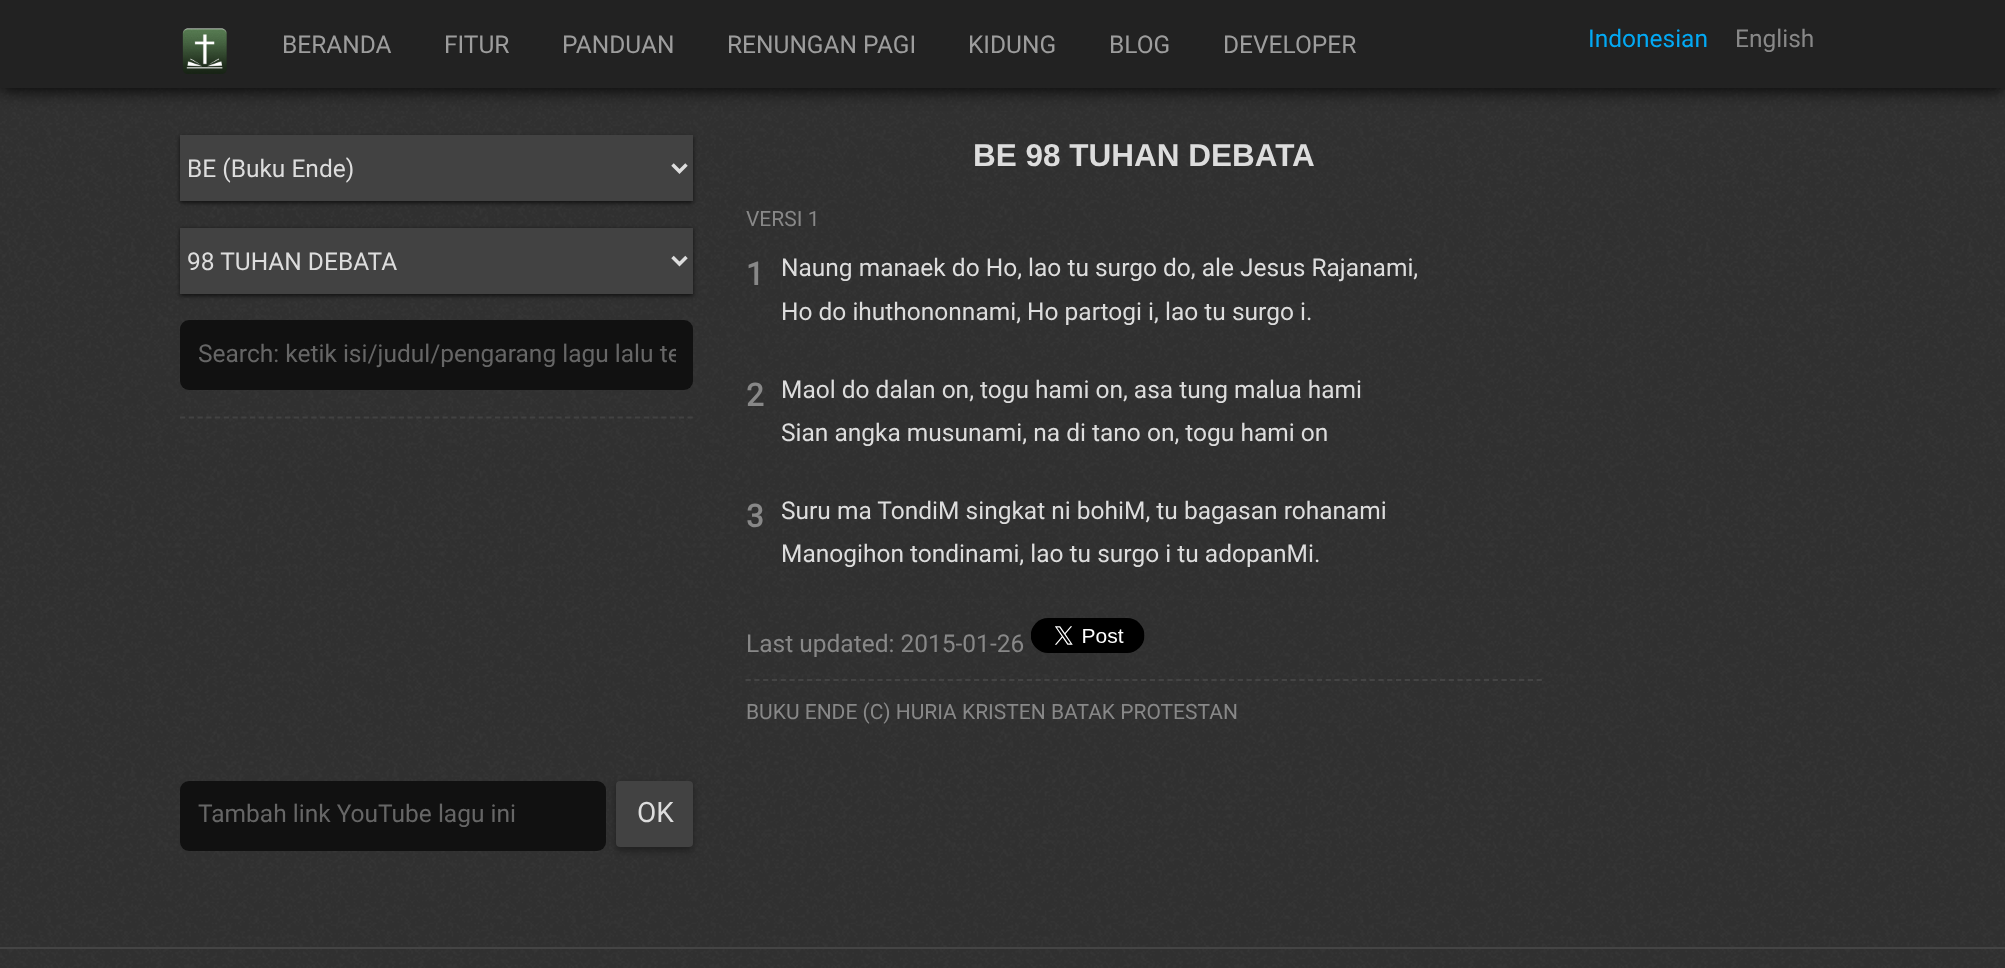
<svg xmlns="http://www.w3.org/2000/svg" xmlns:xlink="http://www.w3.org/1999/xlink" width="2005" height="968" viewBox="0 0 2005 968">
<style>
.cls-1{font:24.5px Roboto;fill:#9d9d9d}
.cls-2{font:24.5px Roboto;fill:#03a9f4}
.cls-3{font:24.5px Roboto;fill:#888888}
.cls-4{font:24.5px Roboto;fill:#dddddd}
.cls-5{font:24.5px Roboto;fill:#666666}
.cls-6{font:bold 31.5px Liberation Sans;fill:#dddddd}
.cls-7{font:21px Roboto;fill:#888888}
.cls-8{font:bold 31.5px Roboto;fill:#888888}
.cls-9{font:28px Roboto;fill:#dddddd}
</style>
<defs>
<clipPath id="clip1"><rect x="198" y="340" width="478" height="28"/></clipPath>
</defs>
<rect width="100%" height="100%" fill="#303030"/>
<image xlink:href="image0.png" x="0" y="88" width="2005" height="880"/>
<rect fill="#000000" filter="blur(9px)" x="0" y="2" width="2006" height="87"/>
<rect fill="#222222" x="0" y="0" width="2005" height="88"/>
<image xlink:href="image1.png" x="182" y="28" width="45" height="46"/>
<rect fill="#111111" filter="blur(2px)" x="180" y="137" width="513" height="66"/>
<rect fill="#424242" x="180" y="135" width="513" height="66"/>
<path fill="none" stroke="#dddddd" stroke-width="3.5" d="M672.5 164.5L679.5 171.5L686.5 164.5"/>
<rect fill="#111111" filter="blur(2px)" x="180" y="229" width="513" height="67"/>
<rect fill="#424242" x="180" y="228" width="513" height="66"/>
<path fill="none" stroke="#dddddd" stroke-width="3.5" d="M672.5 257L679.5 264L686.5 257"/>
<rect fill="#111111" x="180" y="320" width="513" height="70" rx="9"/>
<path fill="none" stroke="#424242" stroke-width="1.8" stroke-dasharray="5.25 3.5" d="M180 417.5H693"/>
<path fill="none" stroke="#333333" stroke-width="1.8" stroke-dasharray="5.25 3.54" d="M745.5 599.5H1542"/>
<image xlink:href="image2.png" x="1031" y="618" width="114" height="35"/>
<path fill="none" stroke="#444444" stroke-width="1.8" stroke-dasharray="5.25 3.54" d="M745.5 680H1542"/>
<rect fill="#111111" x="180" y="781" width="426" height="70" rx="9"/>
<rect fill="#202020" filter="blur(3.5px)" x="616" y="784" width="77" height="67" rx="4"/>
<rect fill="#424242" x="616" y="781" width="77" height="66" rx="4"/>
<rect fill="#444444" x="0" y="947" width="2005" height="2"/>
<text class="cls-1" x="282" y="53">BERANDA</text>
<text class="cls-1" x="444" y="53">FITUR</text>
<text class="cls-1" x="562" y="53">PANDUAN</text>
<text class="cls-1" x="727" y="53">RENUNGAN PAGI</text>
<text class="cls-1" x="968" y="53">KIDUNG</text>
<text class="cls-1" x="1109" y="53">BLOG</text>
<text class="cls-1" x="1223" y="53">DEVELOPER</text>
<text class="cls-2" x="1588" y="47">Indonesian</text>
<text class="cls-3" x="1735" y="47">English</text>
<text class="cls-4" x="187" y="177">BE (Buku Ende)</text>
<text class="cls-4" x="187" y="270">98 TUHAN DEBATA</text>
<g clip-path="url(#clip1)">
<text class="cls-5" x="198" y="362">Search: ketik isi/judul/pengarang lagu lalu te</text>
</g>
<text class="cls-6" x="973" y="166">BE 98 TUHAN DEBATA</text>
<text class="cls-7" x="746" y="226">VERSI 1</text>
<text class="cls-8" x="746" y="285">1</text>
<text class="cls-4"><tspan x="781" y="276">Naung manaek do Ho, lao tu surgo do, ale Jesus Rajanami,</tspan><tspan x="781" y="320">Ho do ihuthononnami, Ho partogi i, lao tu surgo i.</tspan></text>
<text class="cls-8" x="746" y="406">2</text>
<text class="cls-4"><tspan x="781" y="398">Maol do dalan on, togu hami on, asa tung malua hami</tspan><tspan x="781" y="441">Sian angka musunami, na di tano on, togu hami on</tspan></text>
<text class="cls-8" x="746" y="527">3</text>
<text class="cls-4"><tspan x="781" y="519">Suru ma TondiM singkat ni bohiM, tu bagasan rohanami</tspan><tspan x="781" y="562">Manogihon tondinami, lao tu surgo i tu adopanMi.</tspan></text>
<text class="cls-3" x="746" y="652">Last updated: 2015-01-26</text>
<text class="cls-7" x="746" y="719">BUKU ENDE (C) HURIA KRISTEN BATAK PROTESTAN</text>
<text class="cls-5" x="198" y="822">Tambah link YouTube lagu ini</text>
<text class="cls-9" x="637" y="822">OK</text>
</svg>
